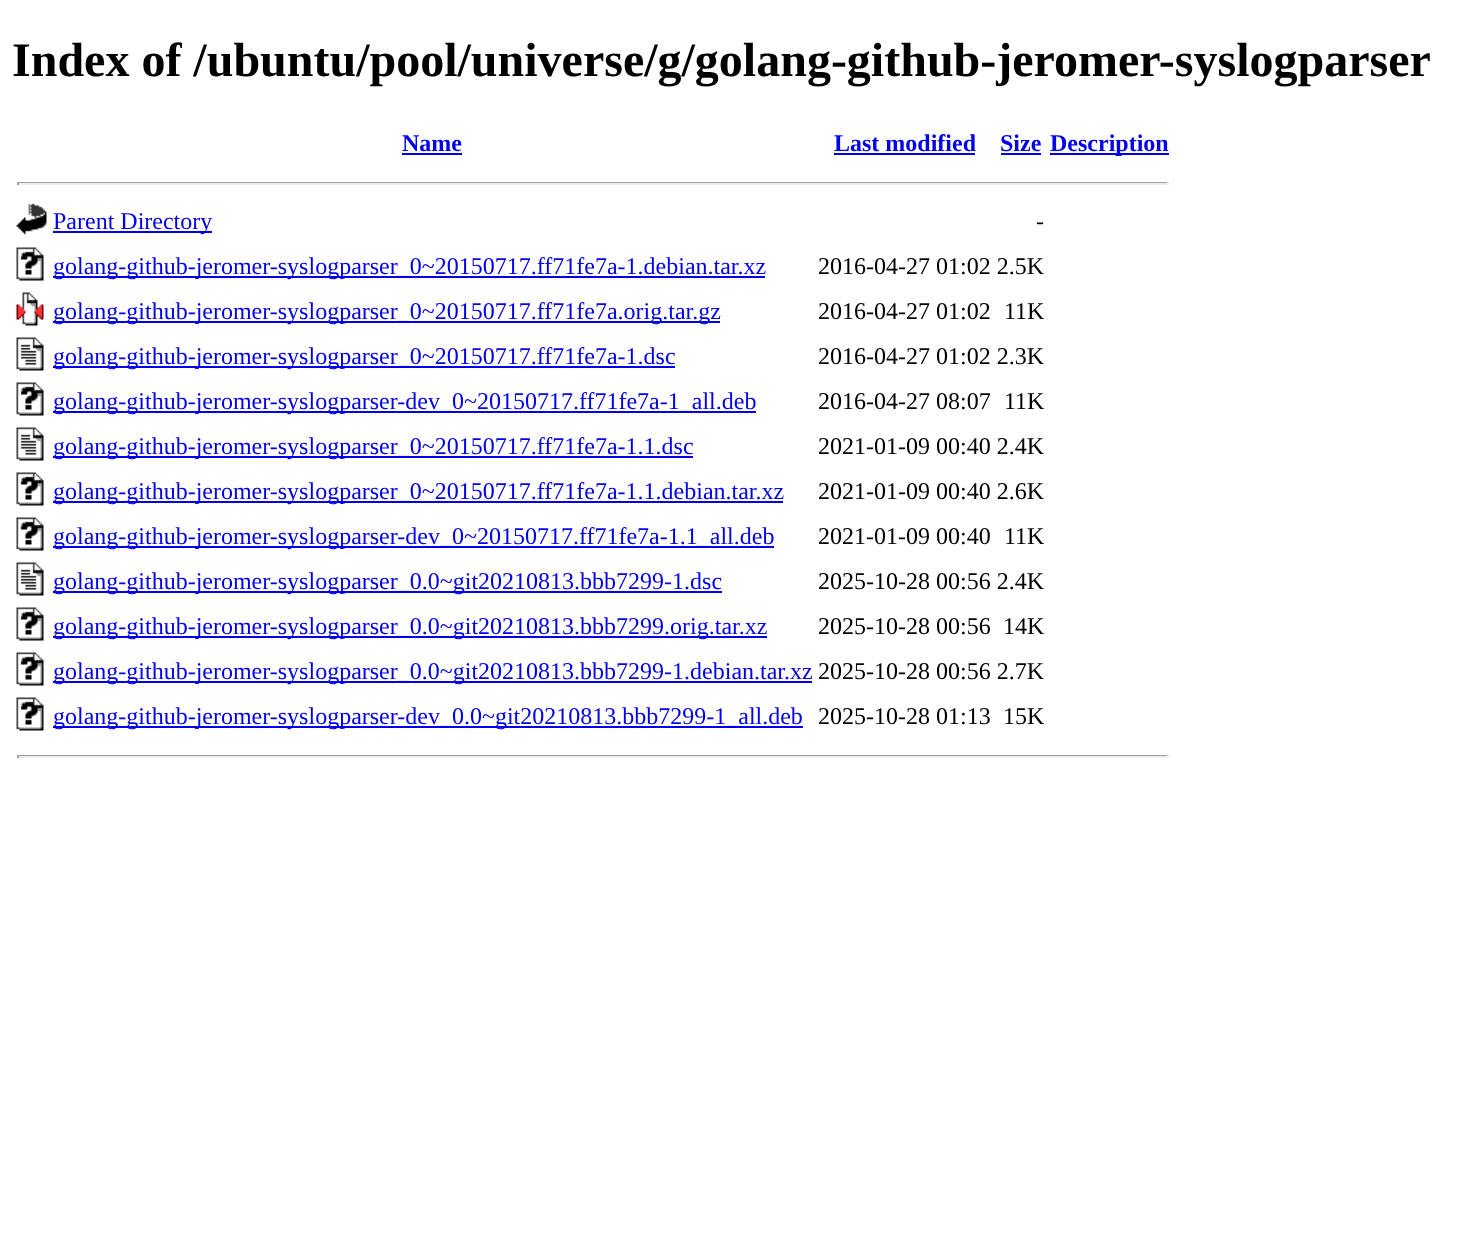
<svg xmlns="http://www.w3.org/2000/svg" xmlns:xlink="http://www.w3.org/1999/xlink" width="1462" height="1254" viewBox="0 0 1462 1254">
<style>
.cls-1{font:bold 48px Liberation Serif;fill:#000000}
.cls-2{font:bold 24px Liberation Serif;fill:#0000ee}
.cls-3{font:24px Liberation Serif;fill:#0000ee}
.cls-4{font:24px Liberation Serif;fill:#000000}
</style>
<rect width="100%" height="100%" fill="#ffffff"/>
<rect fill="#0000ee" x="402" y="153" width="60" height="2"/>
<rect fill="#0000ee" x="834" y="153" width="141" height="2"/>
<rect fill="#0000ee" x="1001" y="153" width="40" height="2"/>
<rect fill="#0000ee" x="1050" y="153" width="119" height="2"/>
<rect fill="#9f9f9f" x="17" y="182" width="1152" height="1"/>
<rect fill="#eeeeee" x="1167" y="182" width="2" height="3"/>
<rect fill="#eeeeee" x="17" y="183" width="1152" height="2"/>
<rect fill="#9f9f9f" x="17" y="182" width="2" height="3"/>
<image xlink:href="image0.png" x="16" y="203" width="31" height="32"/>
<rect fill="#0000ee" x="53" y="231" width="159" height="2"/>
<image xlink:href="image1.png" x="16" y="247" width="28" height="34"/>
<rect fill="#0000ee" x="53" y="276" width="712" height="2"/>
<image xlink:href="image2.png" x="16" y="292" width="28" height="34"/>
<rect fill="#0000ee" x="53" y="321" width="667" height="2"/>
<image xlink:href="image3.png" x="16" y="337" width="28" height="34"/>
<rect fill="#0000ee" x="53" y="366" width="622" height="2"/>
<image xlink:href="image1.png" x="16" y="382" width="28" height="34"/>
<rect fill="#0000ee" x="53" y="411" width="703" height="2"/>
<image xlink:href="image3.png" x="16" y="427" width="28" height="34"/>
<rect fill="#0000ee" x="53" y="456" width="640" height="2"/>
<image xlink:href="image1.png" x="16" y="472" width="28" height="34"/>
<rect fill="#0000ee" x="53" y="501" width="730" height="2"/>
<image xlink:href="image1.png" x="16" y="517" width="28" height="34"/>
<rect fill="#0000ee" x="53" y="546" width="721" height="2"/>
<image xlink:href="image3.png" x="16" y="562" width="28" height="34"/>
<rect fill="#0000ee" x="53" y="591" width="669" height="2"/>
<image xlink:href="image1.png" x="16" y="607" width="28" height="34"/>
<rect fill="#0000ee" x="53" y="636" width="714" height="2"/>
<image xlink:href="image1.png" x="16" y="652" width="28" height="34"/>
<rect fill="#0000ee" x="53" y="681" width="759" height="2"/>
<image xlink:href="image1.png" x="16" y="697" width="28" height="34"/>
<rect fill="#0000ee" x="53" y="726" width="750" height="2"/>
<rect fill="#9f9f9f" x="17" y="755" width="1152" height="1"/>
<rect fill="#eeeeee" x="1167" y="755" width="2" height="3"/>
<rect fill="#eeeeee" x="17" y="756" width="1152" height="2"/>
<rect fill="#9f9f9f" x="17" y="755" width="2" height="3"/>
<text class="cls-1" x="12" y="76">Index of /ubuntu/pool/universe/g/golang-github-jeromer-syslogparser</text>
<text class="cls-2" x="402" y="151">Name</text>
<text class="cls-2" x="834" y="151">Last modified</text>
<text class="cls-2" x="1000" y="151">Size</text>
<text class="cls-2" x="1050" y="151">Description</text>
<text class="cls-3" x="53" y="229">Parent Directory</text>
<text class="cls-4" x="1036" y="229">-</text>
<text class="cls-3" x="53" y="274">golang-github-jeromer-syslogparser_0~20150717.ff71fe7a-1.debian.tar.xz</text>
<text class="cls-4" x="818" y="274">2016-04-27 01:02 2.5K</text>
<text class="cls-3" x="53" y="319">golang-github-jeromer-syslogparser_0~20150717.ff71fe7a.orig.tar.gz</text>
<text class="cls-4" x="818" y="319">2016-04-27 01:02</text>
<text class="cls-4" x="1004" y="319">11K</text>
<text class="cls-3" x="53" y="364">golang-github-jeromer-syslogparser_0~20150717.ff71fe7a-1.dsc</text>
<text class="cls-4" x="818" y="364">2016-04-27 01:02 2.3K</text>
<text class="cls-3" x="53" y="409">golang-github-jeromer-syslogparser-dev_0~20150717.ff71fe7a-1_all.deb</text>
<text class="cls-4" x="818" y="409">2016-04-27 08:07</text>
<text class="cls-4" x="1004" y="409">11K</text>
<text class="cls-3" x="53" y="454">golang-github-jeromer-syslogparser_0~20150717.ff71fe7a-1.1.dsc</text>
<text class="cls-4" x="818" y="454">2021-01-09 00:40 2.4K</text>
<text class="cls-3" x="53" y="499">golang-github-jeromer-syslogparser_0~20150717.ff71fe7a-1.1.debian.tar.xz</text>
<text class="cls-4" x="818" y="499">2021-01-09 00:40 2.6K</text>
<text class="cls-3" x="53" y="544">golang-github-jeromer-syslogparser-dev_0~20150717.ff71fe7a-1.1_all.deb</text>
<text class="cls-4" x="818" y="544">2021-01-09 00:40</text>
<text class="cls-4" x="1004" y="544">11K</text>
<text class="cls-3" x="53" y="589">golang-github-jeromer-syslogparser_0.0~git20210813.bbb7299-1.dsc</text>
<text class="cls-4" x="818" y="589">2025-10-28 00:56 2.4K</text>
<text class="cls-3" x="53" y="634">golang-github-jeromer-syslogparser_0.0~git20210813.bbb7299.orig.tar.xz</text>
<text class="cls-4" x="818" y="634">2025-10-28 00:56</text>
<text class="cls-4" x="1003" y="634">14K</text>
<text class="cls-3" x="53" y="679">golang-github-jeromer-syslogparser_0.0~git20210813.bbb7299-1.debian.tar.xz</text>
<text class="cls-4" x="818" y="679">2025-10-28 00:56 2.7K</text>
<text class="cls-3" x="53" y="724">golang-github-jeromer-syslogparser-dev_0.0~git20210813.bbb7299-1_all.deb</text>
<text class="cls-4" x="818" y="724">2025-10-28 01:13</text>
<text class="cls-4" x="1003" y="724">15K</text>
</svg>
